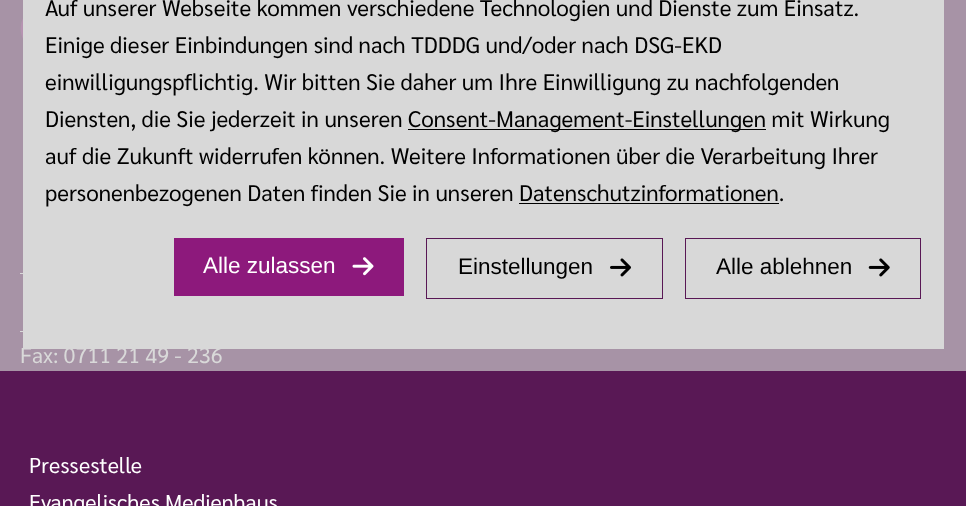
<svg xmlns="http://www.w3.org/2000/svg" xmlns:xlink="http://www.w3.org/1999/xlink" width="966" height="506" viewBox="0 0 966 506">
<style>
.cls-1{font:21.6px Sarabun;fill:#d9d9d9}
.cls-2{font:22.5px Liberation Sans;fill:#000000}
.cls-3{font:22.5px Liberation Sans;fill:#ffffff}
.cls-4{font:22.5px Sarabun;fill:#000000}
.cls-5{font:21.6px Sarabun;fill:#ffffff}
</style>
<rect width="100%" height="100%" fill="#591855"/>
<rect fill="#a793a6" x="0" y="0" width="966" height="371"/>
<image xlink:href="image0.png" x="20" y="18" width="3" height="21"/>
<rect fill="#d9d9d9" x="20" y="273" width="3" height="1"/>
<rect fill="#d9d9d9" x="20" y="331" width="3" height="1"/>
<text class="cls-1" x="20" y="363">Fax: 0711 21 49 - 236</text>
<rect fill="#d8d8d8" x="23" y="0" width="921" height="349"/>
<rect fill="none" stroke="#591855" x="685.5" y="238.5" width="235" height="60"/>
<image xlink:href="image3.png" x="868" y="258" width="22" height="19"/>
<text class="cls-2" x="716" y="274">Alle ablehnen</text>
<rect fill="none" stroke="#591855" x="426.5" y="238.5" width="236" height="60"/>
<image xlink:href="image2.png" x="610" y="258" width="21" height="19"/>
<text class="cls-2" x="458" y="274">Einstellungen</text>
<rect fill="#8d197c" x="174" y="238" width="230" height="58"/>
<image xlink:href="image1.png" x="352" y="257" width="22" height="19"/>
<text class="cls-3" x="203" y="273">Alle zulassen</text>
<rect fill="#000000" x="519" y="203" width="260" height="1"/>
<text class="cls-4" x="45" y="201">personenbezogenen Daten finden Sie in unseren Datenschutzinformationen.</text>
<text class="cls-4" x="45" y="164">auf die Zukunft widerrufen können. Weitere Informationen über die Verarbeitung Ihrer</text>
<rect fill="#000000" x="408" y="129" width="358" height="1"/>
<text class="cls-4" x="408" y="127">Consent-Management-Einstellungen mit Wirkung</text>
<text class="cls-4" x="45" y="127">Diensten, die Sie jederzeit in unseren</text>
<text class="cls-4" x="45" y="90">einwilligungspflichtig. Wir bitten Sie daher um Ihre Einwilligung zu nachfolgenden</text>
<text class="cls-4" x="45" y="53">Einige dieser Einbindungen sind nach TDDDG und/oder nach DSG-EKD</text>
<text class="cls-4" x="45" y="16">Auf unserer Webseite kommen verschiedene Technologien und Dienste zum Einsatz.</text>
<text class="cls-5"><tspan x="29" y="473">Pressestelle</tspan><tspan x="29" y="510">Evangelisches Medienhaus</tspan></text>
</svg>
